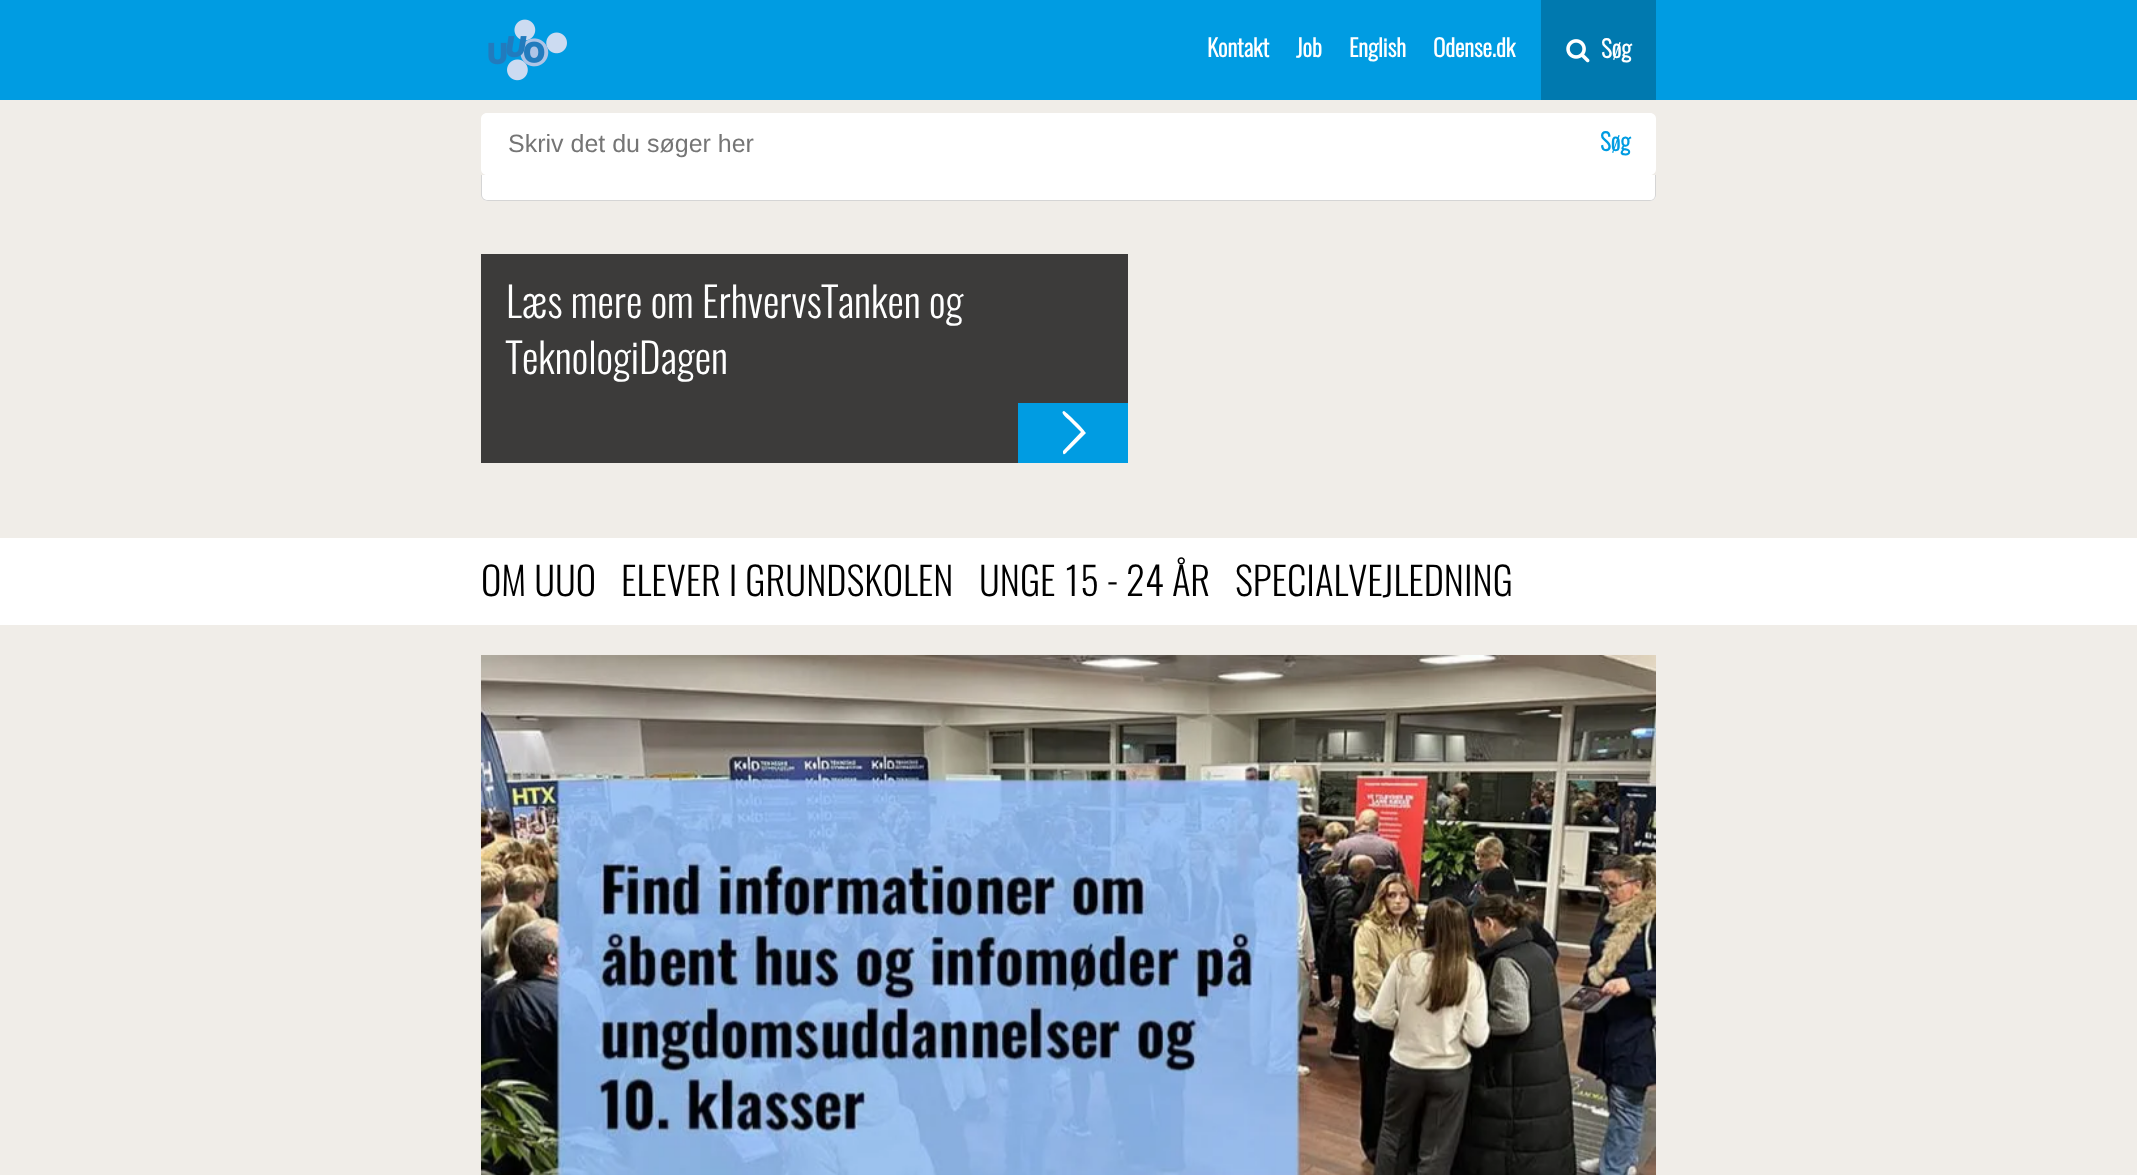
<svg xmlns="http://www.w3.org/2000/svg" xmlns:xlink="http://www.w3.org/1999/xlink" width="2137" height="1175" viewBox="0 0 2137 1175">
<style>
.cls-1{font:bold 23.5px Oswald;fill:#ffffff}
.cls-2{font:25px Liberation Sans;fill:#757575}
.cls-3{font:bold 23.5px Oswald;fill:#009ce2}
.cls-4{font:300 41.25px Oswald;fill:#ffffff}
.cls-5{font:300 38.75px Oswald;fill:#000000}
</style>
<rect width="100%" height="100%" fill="#f0ede8"/>
<rect fill="#009ce2" x="0" y="0" width="2137" height="100"/>
<image xlink:href="image0.png" x="488" y="19" width="79" height="62"/>
<rect fill="#0079af" x="1541" y="0" width="115" height="100"/>
<image xlink:href="image1.png" x="1566" y="39" width="24" height="24"/>
<path fill="#ffffff" d="M487 113H1575V175H487C483.5 175 481 172.5 481 169V119C481 115.5 483.5 113 487 113Z"/>
<path fill="#ffffff" d="M1575 113H1650C1653.5 113 1656 115.5 1656 119V169C1656 172.5 1653.5 175 1650 175H1575Z"/>
<path fill="#ffffff" d="M481 175H1656V195C1656 198.5 1653.5 201 1650 201H487C483.5 201 481 198.5 481 195Z"/>
<path fill="#808080" fill-opacity="0.33" fill-rule="evenodd" d="M481 175H1656V195C1656 198 1653 201 1650 201H488C484 201 481 198 481 195ZM482 175H1655V195C1655 198 1653 200 1650 200H488C485 200 482 198 482 195Z"/>
<rect fill="#3c3b3a" x="481" y="254" width="647" height="209"/>
<rect fill="#009ce2" x="1018" y="403" width="110" height="60"/>
<path fill="#ffffff" d="M1063 451L1081 432L1069 420C1068 419 1059 412 1064 411C1065 411 1084 429 1085 432L1086 433L1069 450C1068 450 1064 457 1063 453Z"/>
<rect fill="#ffffff" x="0" y="538" width="2137" height="87"/>
<image xlink:href="image2.png" x="481" y="655" width="1175" height="520"/>
<text class="cls-1" x="1207" y="57">Kontakt</text>
<text class="cls-1" x="1296" y="57">Job</text>
<text class="cls-1" x="1349" y="57">English</text>
<text class="cls-1" x="1433" y="57">Odense.dk</text>
<text class="cls-1" x="1601" y="58">Søg</text>
<text class="cls-2" x="508" y="152">Skriv det du søger her</text>
<text class="cls-3" x="1600" y="151">Søg</text>
<text class="cls-4"><tspan x="506" y="318">Læs mere om ErhvervsTanken og</tspan><tspan x="506" y="374">TeknologiDagen</tspan></text>
<text class="cls-5" x="481" y="596">OM UUO</text>
<text class="cls-5" x="621" y="596">ELEVER I GRUNDSKOLEN</text>
<text class="cls-5" x="979" y="596">UNGE 15 - 24 ÅR</text>
<text class="cls-5" x="1235" y="596">SPECIALVEJLEDNING</text>
</svg>
